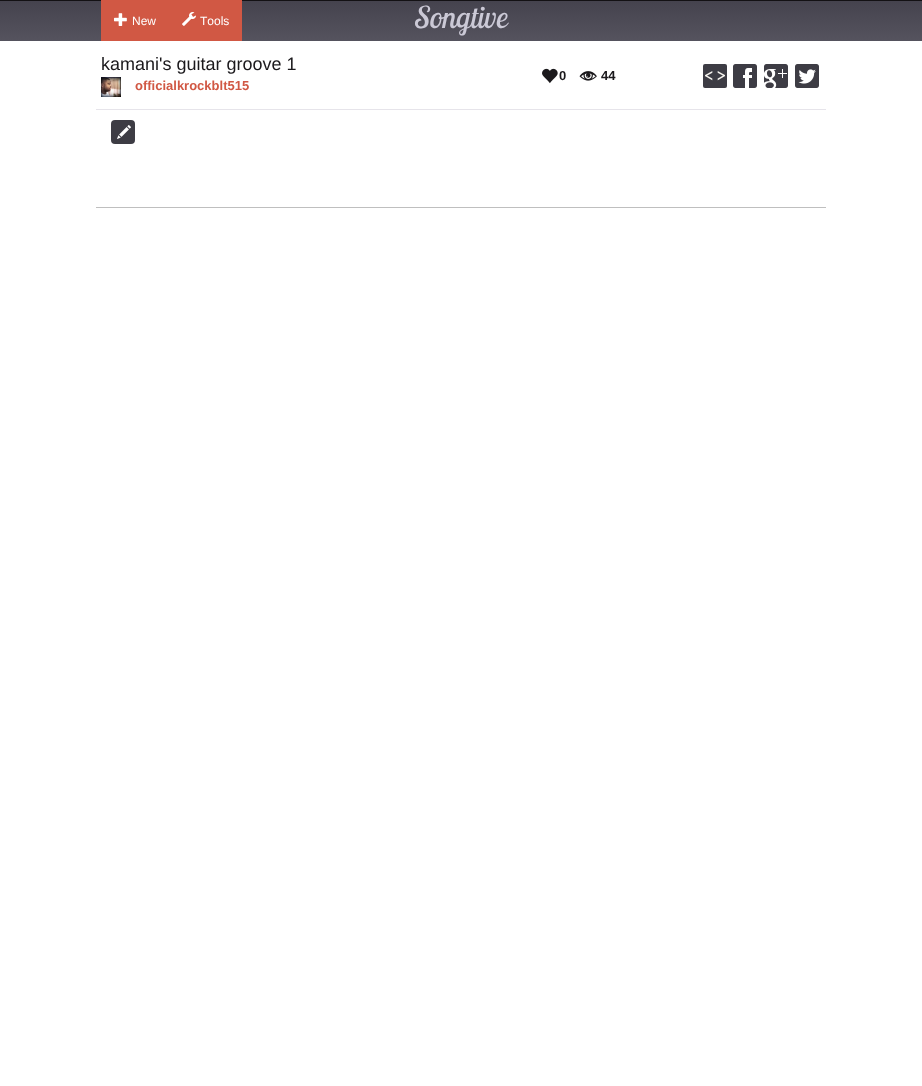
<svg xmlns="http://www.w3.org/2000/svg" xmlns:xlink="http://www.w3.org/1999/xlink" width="922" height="1086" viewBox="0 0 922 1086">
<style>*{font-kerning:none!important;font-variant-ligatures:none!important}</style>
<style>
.cls-1{font:12px Liberation Sans;fill:#ffffff}
.cls-2{font:italic 30px Lobster Two;fill:#cbc9d6}
.cls-3{font:18px Liberation Sans;fill:#1b191c}
.cls-4{font:bold 13px Liberation Sans;fill:#d15844}
.cls-5{font:bold 13px Liberation Sans;fill:#1b191c}
</style>
<defs>
<linearGradient id="g1" gradientUnits="userSpaceOnUse" x1="461" y1="1" x2="461" y2="41"><stop offset="0" stop-color="#45434e"/><stop offset="1" stop-color="#55535e"/></linearGradient>
</defs>
<rect width="100%" height="100%" fill="#ffffff"/>
<rect fill="url(#g1)" x="0" y="1" width="922" height="40"/>
<rect fill="#131114" x="0" y="0" width="922" height="1"/>
<rect fill="#d15844" x="101" y="0" width="141" height="41"/>
<image xlink:href="image0.png" x="114" y="13" width="13" height="13"/>
<image xlink:href="image1.png" x="182" y="12" width="14" height="14"/>
<rect fill="#e6e4ea" x="96" y="109" width="730" height="1"/>
<image xlink:href="image2.png" x="101" y="77" width="20" height="20"/>
<image xlink:href="image3.png" x="542" y="68" width="16" height="16"/>
<image xlink:href="image4.png" x="579" y="71" width="18" height="10"/>
<rect fill="#3d3c44" x="703" y="64" width="24" height="24" rx="2"/>
<image xlink:href="image5.png" x="705" y="71" width="20" height="10"/>
<image xlink:href="image6.png" x="733" y="64" width="24" height="24"/>
<image xlink:href="image7.png" x="764" y="64" width="24" height="24"/>
<image xlink:href="image8.png" x="795" y="64" width="24" height="24"/>
<rect fill="#3d3c44" x="111" y="120" width="24" height="24" rx="4"/>
<image xlink:href="image9.png" x="117" y="125" width="14" height="14"/>
<rect fill="#bfbfbf" x="96" y="207" width="730" height="1"/>
<text class="cls-1" x="132" y="25">New</text>
<text class="cls-1" x="200" y="25">Tools</text>
<text class="cls-2" x="415" y="28">Songtive</text>
<text class="cls-3" x="101" y="70">kamani's guitar groove 1</text>
<text class="cls-4" x="135" y="90">officialkrockblt515</text>
<text class="cls-5" x="559" y="80">0</text>
<text class="cls-5" x="601" y="80">44</text>
</svg>
